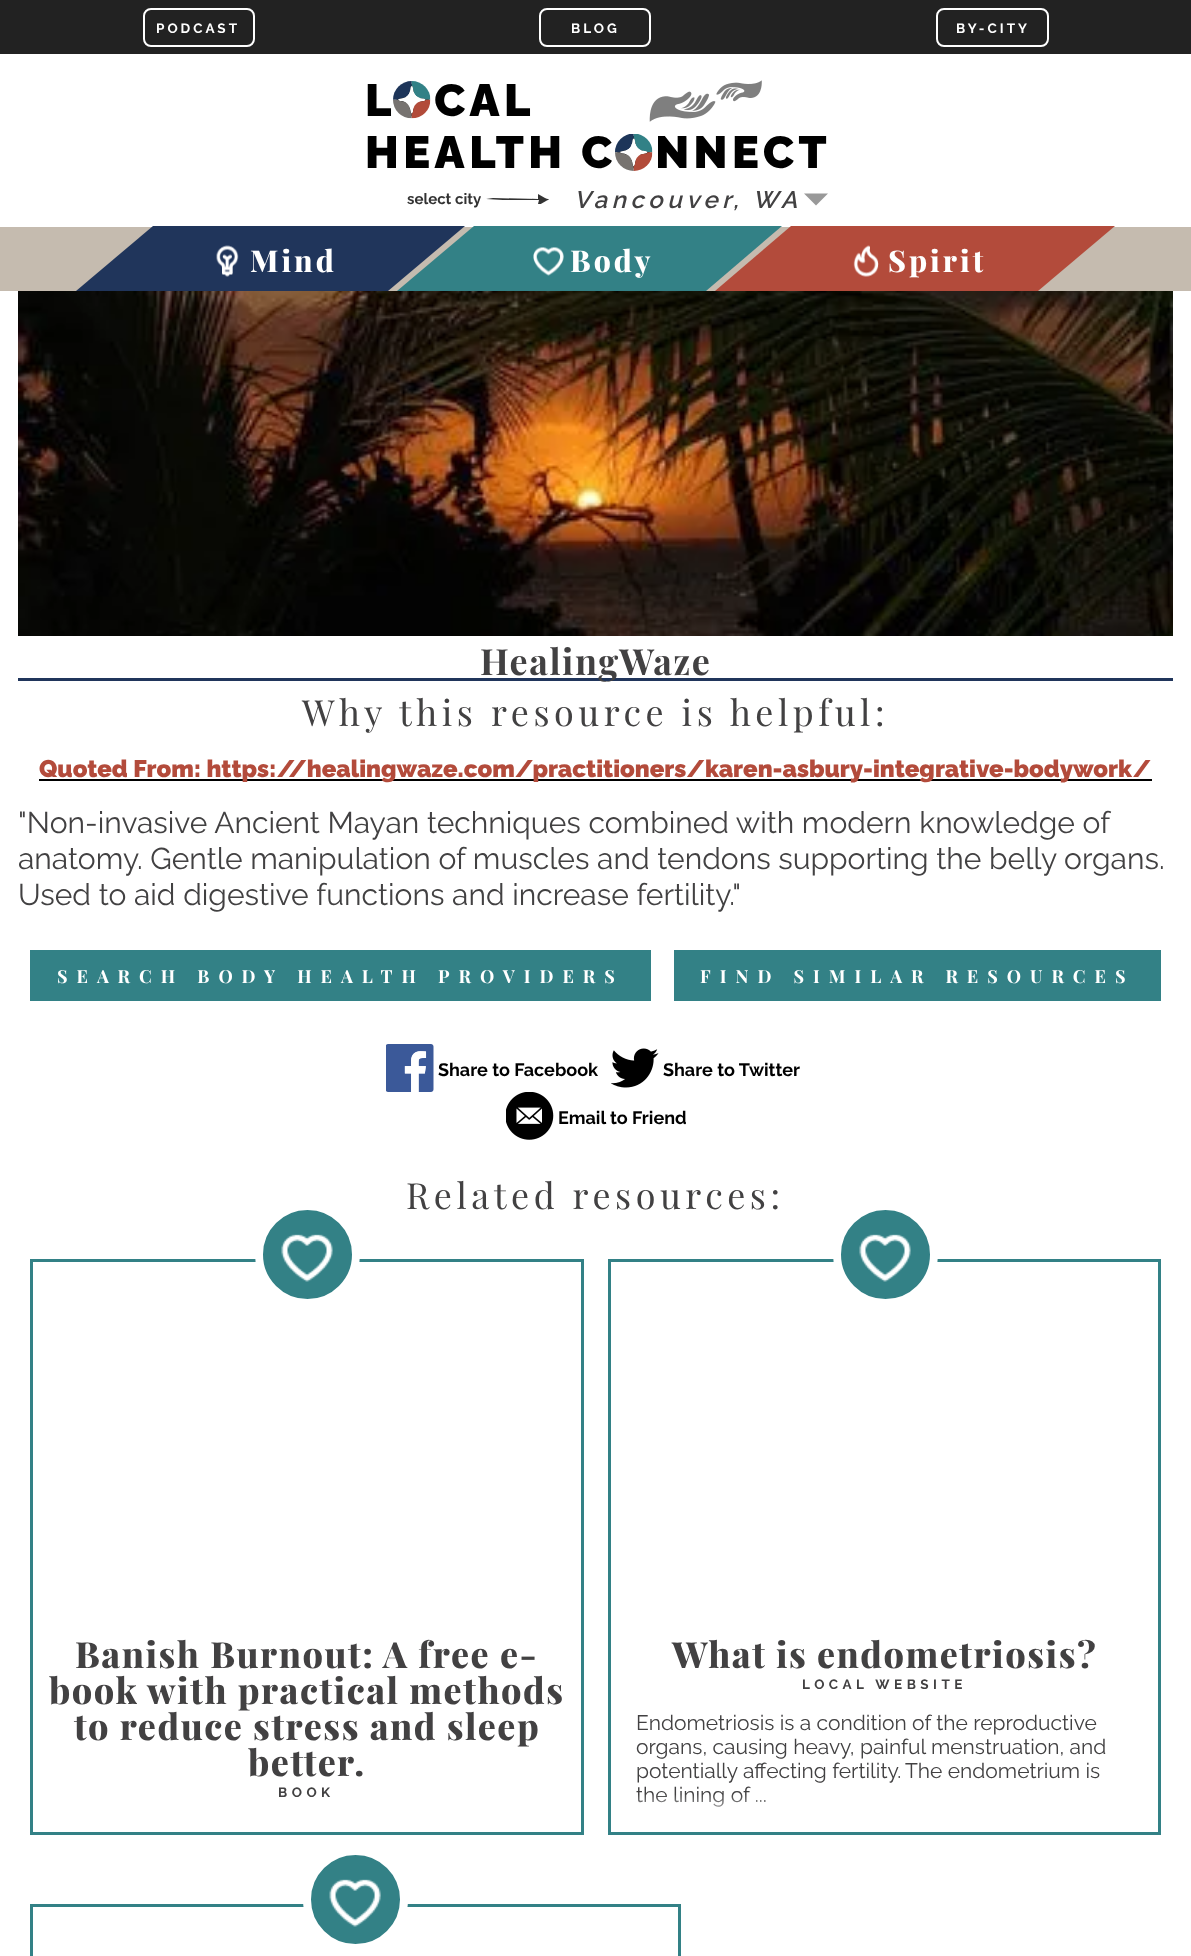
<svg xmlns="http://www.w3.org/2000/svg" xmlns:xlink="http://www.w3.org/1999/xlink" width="1191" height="1956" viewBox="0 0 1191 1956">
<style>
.cls-1{font:100 13.5px 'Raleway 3';letter-spacing:3px;fill:#ffffff}
.cls-2{font:100 45px Raleway;letter-spacing:4.5px;fill:#000000}
.cls-3{font:100 15px 'Raleway 3';fill:#333333}
.cls-4{font:italic 100 24px Raleway;letter-spacing:4.5px;fill:#424142}
.cls-5{font:800 30px Playfair Display;letter-spacing:3px;fill:#ffffff}
.cls-6{font:bold 36px Playfair Display;letter-spacing:1.5px;fill:#424142}
.cls-7{font:36px Playfair Display;letter-spacing:4.5px;fill:#424142}
.cls-8{font:100 24px Raleway;fill:#b34b3b}
.cls-9{font:100 30px 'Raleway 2';fill:#424142}
.cls-10{font:bold 18px Playfair Display;letter-spacing:9px;fill:#ffffff}
.cls-11{font:100 18px 'Raleway 3';fill:#000000}
.cls-12{font:800 36px Playfair Display;letter-spacing:1.5px;fill:#424142}
.cls-13{font:100 13.5px 'Raleway 3';letter-spacing:4.5px;fill:#424142}
.cls-14{font:100 21px 'Raleway 2';fill:#424142}
</style>
<defs>
<clipPath id="clip1"><rect x="486" y="194" width="63" height="10"/></clipPath>
<linearGradient id="g1" gradientUnits="userSpaceOnUse" x1="884" y1="1794" x2="884" y2="1824"><stop offset="0" stop-color="#ffffff" stop-opacity="0"/><stop offset="1" stop-color="#ffffff"/></linearGradient>
</defs>
<rect width="100%" height="100%" fill="#ffffff"/>
<rect fill="#222222" x="0" y="0" width="1191" height="54"/>
<rect fill="none" stroke="#ffffff" stroke-width="2" x="144" y="9" width="110" height="37" rx="7"/>
<rect fill="none" stroke="#ffffff" stroke-width="2" x="540" y="9" width="110" height="37" rx="7"/>
<rect fill="none" stroke="#ffffff" stroke-width="2" x="937" y="9" width="111" height="37" rx="7"/>
<image xlink:href="image1.png" x="649" y="80" width="113" height="42"/>
<g clip-path="url(#clip1)">
<path fill="#333333" d="M538 194V199L493 198L486 199L503 200H539L538 204C538 204 538 206 539 205L546 201C550 199 550 200 545 198Z"/>
</g>
<path fill="#999999" d="M804 193.5H828L816 205.5Z"/>
<rect fill="#c5bbaf" x="0" y="227" width="1191" height="64"/>
<path fill="#20355b" d="M153 226H465L388 291H76Z"/>
<image xlink:href="image3.png" x="216" y="245" width="23" height="32"/>
<path fill="#338186" d="M474 226H782L706 291H397Z"/>
<image xlink:href="image4.png" x="533" y="247" width="31" height="29"/>
<path fill="#b34b3b" d="M791 226H1115L1038 291H715Z"/>
<image xlink:href="image5.png" x="853" y="245" width="26" height="32"/>
<image xlink:href="image6.png" x="18" y="291" width="1155" height="345"/>
<rect fill="#20355b" x="18" y="678" width="1155" height="3"/>
<rect fill="#000000" x="39" y="779" width="1113" height="2"/>
<rect fill="#338186" x="30" y="950" width="621" height="51"/>
<rect fill="#338186" x="674" y="950" width="487" height="51"/>
<image xlink:href="image7.png" x="386" y="1044" width="48" height="48"/>
<image xlink:href="image8.png" x="611" y="1048" width="48" height="40"/>
<image xlink:href="image9.png" x="506" y="1092" width="48" height="48"/>
<rect fill="none" stroke="#338186" stroke-width="3" x="31.5" y="1260.5" width="551" height="573"/>
<circle fill="#338186" stroke="#ffffff" stroke-width="8" cx="307.5" cy="1254.5" r="48.5"/>
<image xlink:href="image10.png" x="281" y="1234" width="52" height="48"/>
<rect fill="none" stroke="#338186" stroke-width="3" x="609.5" y="1260.5" width="550" height="573"/>
<circle fill="#338186" stroke="#ffffff" stroke-width="8" cx="885.5" cy="1254.5" r="48.5"/>
<image xlink:href="image11.png" x="859" y="1234" width="52" height="48"/>
<rect fill="none" stroke="#338186" stroke-width="3" x="31.5" y="1905.5" width="648" height="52"/>
<circle fill="#338186" stroke="#ffffff" stroke-width="8" cx="355.5" cy="1899.5" r="48.5"/>
<image xlink:href="image12.png" x="329" y="1879" width="52" height="48"/>
<text class="cls-1" x="156" y="33">PODCAST</text>
<text class="cls-1" x="571" y="33">BLOG</text>
<text class="cls-1" x="956" y="33">BY-CITY</text>
<text class="cls-2" x="365" y="116">LOCAL</text>
<image xlink:href="image0.png" x="393" y="81" width="38" height="38"/>
<text class="cls-2" x="365" y="168">HEALTH CONNECT</text>
<image xlink:href="image2.png" x="615" y="134" width="38" height="37"/>
<text class="cls-3" x="407" y="204">select city</text>
<text class="cls-4" x="574" y="208">Vancouver, WA</text>
<text class="cls-5" x="250" y="272">Mind</text>
<text class="cls-5" x="570" y="272">Body</text>
<text class="cls-5" x="888" y="272">Spirit</text>
<text class="cls-6" x="480" y="675">HealingWaze</text>
<text class="cls-7" x="302" y="726">Why this resource is helpful:</text>
<text class="cls-8" x="39" y="777">Quoted From: https://healingwaze.com/practitioners/karen-asbury-integrative-bodywork/</text>
<text class="cls-9"><tspan x="18" y="833">"Non-invasive Ancient Mayan techniques combined with modern knowledge of</tspan><tspan x="18" y="869">anatomy. Gentle manipulation of muscles and tendons supporting the belly organs.</tspan><tspan x="18" y="905">Used to aid digestive functions and increase fertility."</tspan></text>
<text class="cls-10" x="57" y="983">SEARCH BODY HEALTH PROVIDERS</text>
<text class="cls-10" x="700" y="983">FIND SIMILAR RESOURCES</text>
<text class="cls-11" x="438" y="1076">Share to Facebook</text>
<text class="cls-11" x="663" y="1076">Share to Twitter</text>
<text class="cls-11" x="558" y="1124">Email to Friend</text>
<text class="cls-7" x="406" y="1209">Related resources:</text>
<text class="cls-12" x="75" y="1668">Banish Burnout: A free e-</text>
<text class="cls-12" x="49" y="1704">book with practical methods</text>
<text class="cls-12" x="74" y="1740">to reduce stress and sleep</text>
<text class="cls-12" x="248" y="1776">better.</text>
<text class="cls-13" x="278" y="1797">BOOK</text>
<text class="cls-12" x="672" y="1668">What is endometriosis?</text>
<text class="cls-13" x="802" y="1689">LOCAL WEBSITE</text>
<text class="cls-14"><tspan x="636" y="1730">Endometriosis is a condition of the reproductive</tspan><tspan x="636" y="1754">organs, causing heavy, painful menstruation, and</tspan><tspan x="636" y="1778">potentially affecting fertility.</tspan></text>
<text class="cls-14" x="905" y="1778">The endometrium is</text>
<text class="cls-14" x="636" y="1802">the lining of ...</text>
<rect fill="url(#g1)" x="637" y="1795" width="128" height="12"/>
</svg>
